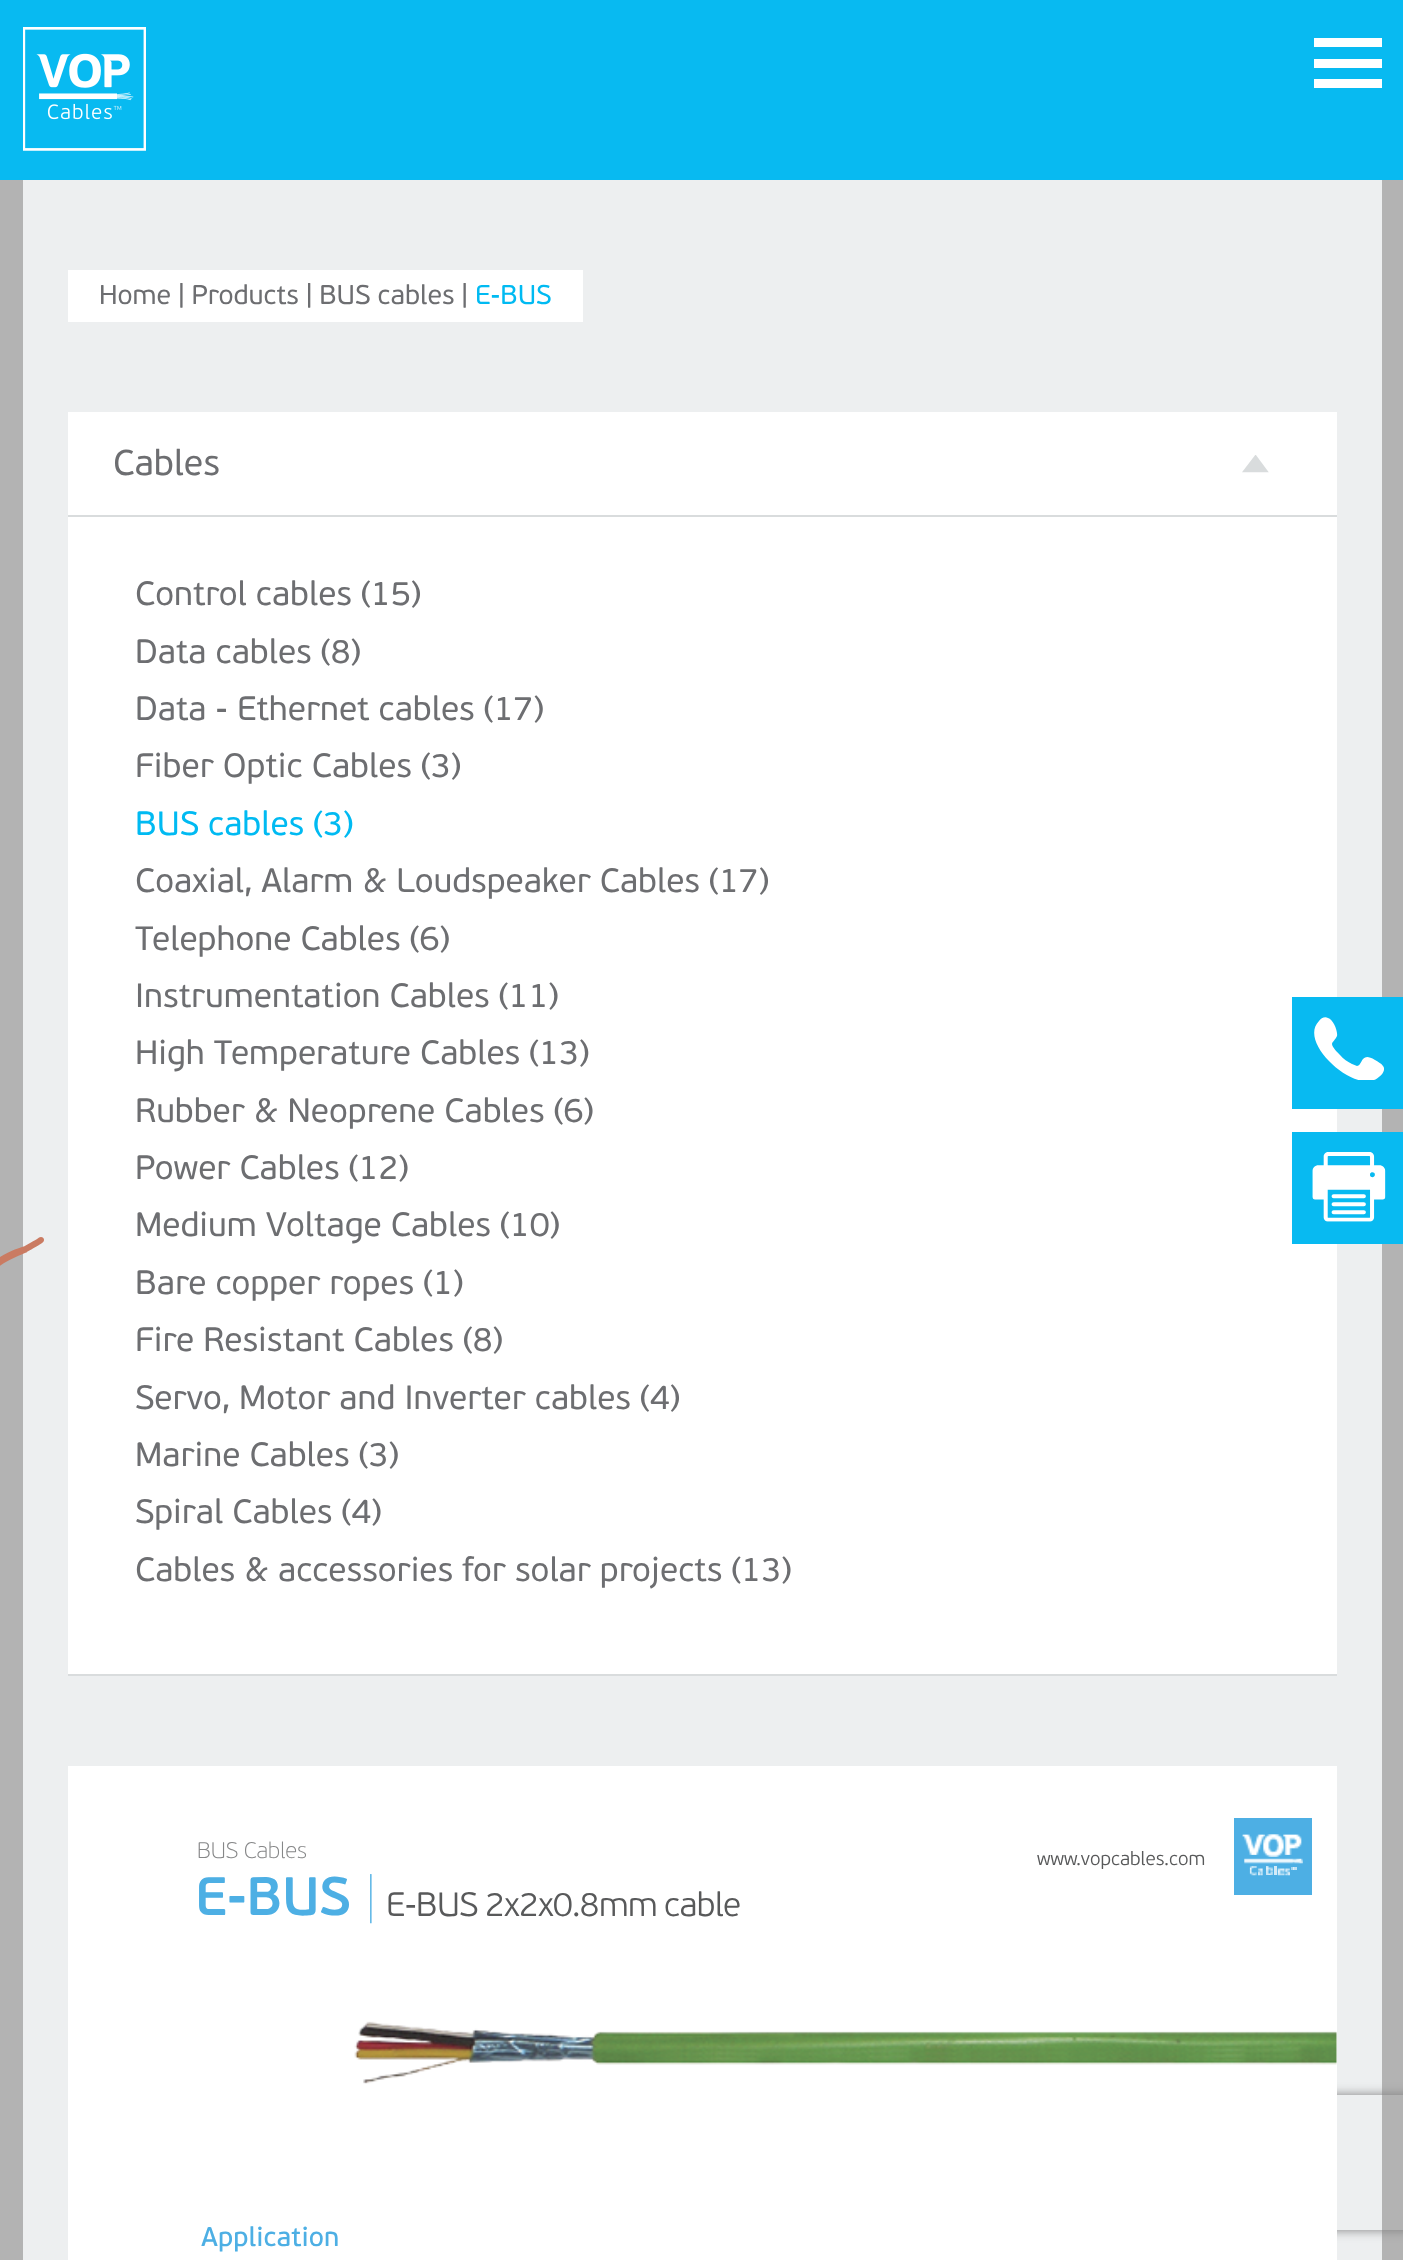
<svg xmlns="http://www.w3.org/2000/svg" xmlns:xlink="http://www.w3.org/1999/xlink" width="1403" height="2260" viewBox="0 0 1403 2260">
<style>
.cls-1{font:27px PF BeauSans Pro;fill:#6d6e71}
.cls-2{font:27px PF BeauSans Pro;fill:#00baf2}
.cls-3{font:36px PF BeauSans Pro;fill:#6d6e71}
.cls-4{font:33.75px PF BeauSans Pro;fill:#6d6e71}
.cls-5{font:33.75px PF BeauSans Pro;fill:#00baf2}
.cls-6{font:100 22.5px 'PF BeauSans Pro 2';fill:#868788}
.cls-7{font:300 19.1px PF BeauSans Pro;fill:#58595a}
.cls-8{font:600 54px PF BeauSans Pro;letter-spacing:-0.5px;fill:#4dafe4}
.cls-9{font:100 54px PF BeauSans Pro;letter-spacing:-0.5px;fill:#4dafe4}
.cls-10{font:300 33.75px PF BeauSans Pro;letter-spacing:-0.5px;fill:#58595a}
.cls-11{font:27px 'PF BeauSans Pro 2';fill:#4dafe4}
</style>
<defs>
<clipPath id="clip1"><path d="M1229 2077H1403V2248H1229ZM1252 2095H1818C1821 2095 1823 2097 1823 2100V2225C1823 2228 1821 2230 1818 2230H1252C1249 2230 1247 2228 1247 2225V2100C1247 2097 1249 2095 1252 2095Z" clip-rule="evenodd"/></clipPath>
<clipPath id="clip2"><rect x="1314" y="1017" width="70" height="63"/></clipPath>
</defs>
<rect width="100%" height="100%" fill="#b3b3b3"/>
<rect fill="#08baf1" x="0" y="0" width="1403" height="180"/>
<image xlink:href="image0.png" x="23" y="27" width="123" height="124"/>
<rect fill="#ffffff" x="1314" y="59" width="68" height="9"/>
<rect fill="#ffffff" x="1314" y="38" width="68" height="9"/>
<rect fill="#ffffff" x="1314" y="79" width="68" height="9"/>
<rect fill="#edeff0" x="23" y="180" width="1359" height="2080"/>
<rect fill="#ffffff" x="68" y="270" width="515" height="52"/>
<rect fill="#ffffff" x="68" y="412" width="1269" height="1262"/>
<image xlink:href="image1.png" x="1242" y="455" width="27" height="18"/>
<rect fill="#d9dcdd" x="68" y="515" width="1269" height="2"/>
<rect fill="#d9dcdd" x="68" y="1674" width="1269" height="2"/>
<g clip-path="url(#clip1)">
<rect fill="#808080" filter="blur(5.5px)" x="1247" y="2095" width="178" height="135" rx="5"/>
</g>
<rect fill="#ffffff" x="68" y="1766" width="1269" height="494"/>
<rect fill="#4dafe4" x="1234" y="1818" width="78" height="77"/>
<rect fill="#bfe2f5" x="1293" y="1867" width="4" height="3"/>
<image xlink:href="image3.png" x="1263" y="1834" width="21" height="23"/>
<image xlink:href="image2.png" x="1242" y="1834" width="24" height="21"/>
<image xlink:href="image4.png" x="1283" y="1834" width="19" height="21"/>
<image xlink:href="image5.png" x="1244" y="1858" width="59" height="6"/>
<image xlink:href="image6.png" x="1249" y="1866" width="8" height="10"/>
<image xlink:href="image7.png" x="1258" y="1868" width="5" height="8"/>
<image xlink:href="image8.png" x="1266" y="1866" width="7" height="9"/>
<rect fill="#d3ebf8" x="1274" y="1866" width="3" height="9"/>
<image xlink:href="image9.png" x="1277" y="1868" width="8" height="8"/>
<image xlink:href="image10.png" x="1285" y="1868" width="5" height="8"/>
<rect fill="#a4d6f1" x="1291" y="1867" width="3" height="3"/>
<rect fill="#def0fa" x="1293" y="1867" width="1" height="3"/>
<image xlink:href="image11.png" x="354" y="2021" width="983" height="63"/>
<rect fill="#08baf1" x="1292" y="997" width="111" height="112"/>
<g clip-path="url(#clip2)">
<path fill="#ffffff" fill-rule="evenodd" d="M1375 1060C1360 1051 1363 1066 1357 1066L1352 1064C1348 1062 1343 1059 1340 1055C1338 1053 1332 1047 1332 1044C1332 1042 1336 1039 1337 1036C1338 1031 1333 1019 1328 1018C1325 1016 1321 1018 1319 1021C1298 1042 1351 1090 1374 1080C1379 1078 1387 1071 1383 1066C1381 1063 1378 1062 1375 1060Z"/>
</g>
<rect fill="#08baf1" x="1292" y="1132" width="111" height="112"/>
<image xlink:href="image12.png" x="1312" y="1152" width="74" height="70"/>
<image xlink:href="image13.png" x="0" y="1237" width="44" height="29"/>
<text class="cls-1" x="99" y="304">Home | Products | BUS cables |</text>
<text class="cls-2" x="475" y="304">E-BUS</text>
<text class="cls-3" x="113" y="475">Cables</text>
<text class="cls-4"><tspan x="135" y="605">Control cables (15)</tspan><tspan x="135" y="663">Data cables (8)</tspan><tspan x="135" y="720">Data - Ethernet cables (17)</tspan><tspan x="135" y="777">Fiber Optic Cables (3)</tspan></text>
<text class="cls-5" x="135" y="835">BUS cables (3)</text>
<text class="cls-4"><tspan x="135" y="892">Coaxial, Alarm &amp; Loudspeaker Cables (17)</tspan><tspan x="135" y="950">Telephone Cables (6)</tspan><tspan x="135" y="1007">Instrumentation Cables (11)</tspan><tspan x="135" y="1064">High Temperature Cables (13)</tspan><tspan x="135" y="1122">Rubber &amp; Neoprene Cables (6)</tspan><tspan x="135" y="1179">Power Cables (12)</tspan><tspan x="135" y="1236">Medium Voltage Cables (10)</tspan><tspan x="135" y="1294">Bare copper ropes (1)</tspan><tspan x="135" y="1351">Fire Resistant Cables (8)</tspan><tspan x="135" y="1409">Servo, Motor and Inverter cables (4)</tspan><tspan x="135" y="1466">Marine Cables (3)</tspan><tspan x="135" y="1523">Spiral Cables (4)</tspan><tspan x="135" y="1581">Cables &amp; accessories for solar projects (13)</tspan></text>
<text class="cls-6" x="197" y="1858">BUS Cables</text>
<text class="cls-7" x="1037" y="1865">www.vopcables.com</text>
<text class="cls-8" x="195" y="1915">E-BUS</text>
<text class="cls-9" x="366" y="1916">|</text>
<text class="cls-10" x="386" y="1916">E-BUS</text>
<text class="cls-10" x="485" y="1916">2x2x0.8mm</text>
<text class="cls-10" x="664" y="1916">cable</text>
<text class="cls-11" x="201" y="2246">Application</text>
</svg>
